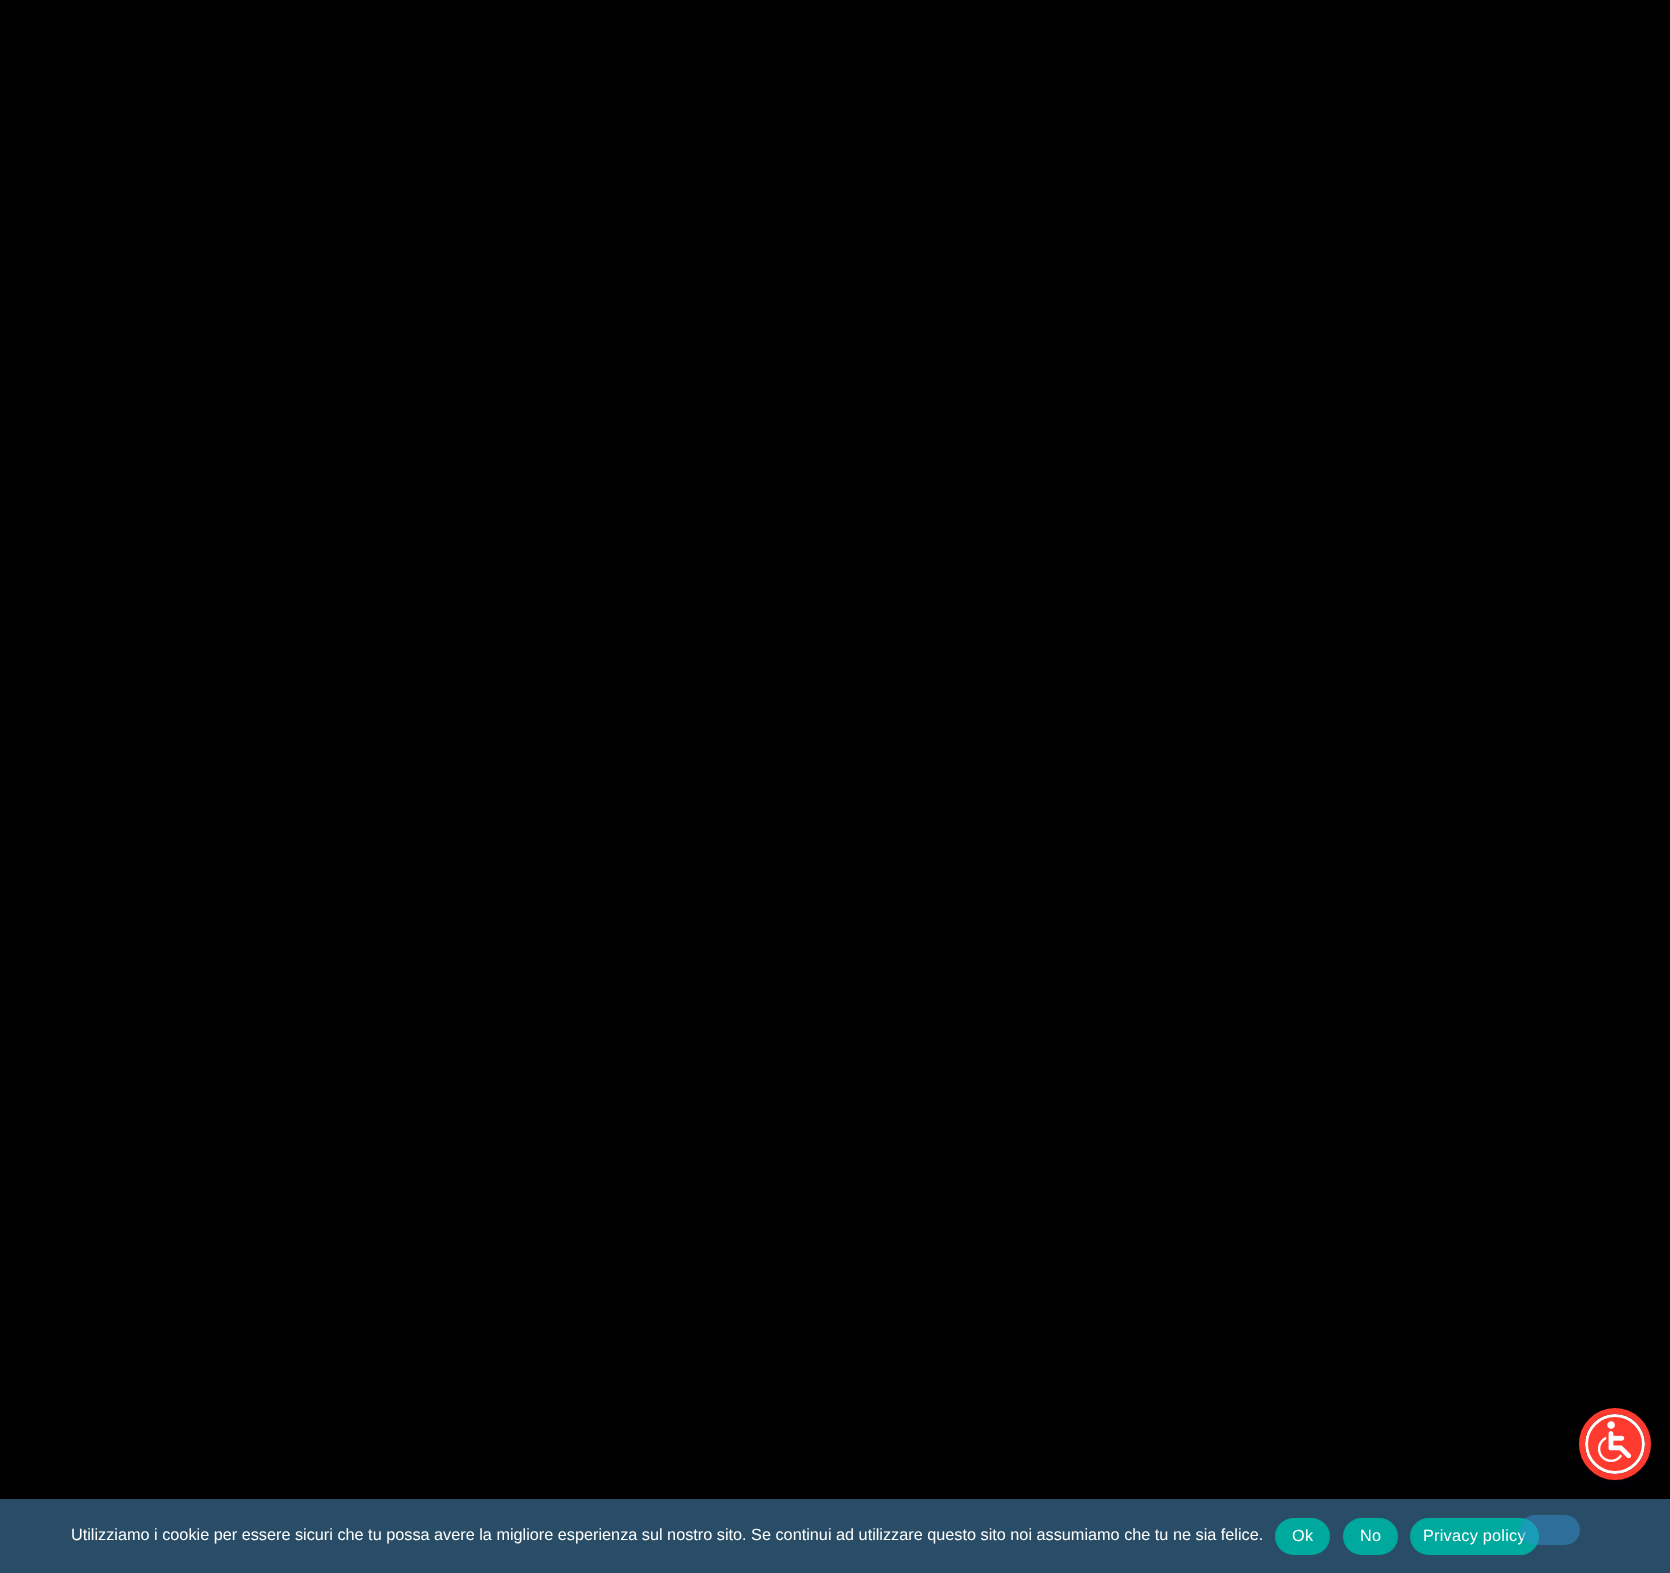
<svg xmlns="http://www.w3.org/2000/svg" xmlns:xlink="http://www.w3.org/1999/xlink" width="1670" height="1573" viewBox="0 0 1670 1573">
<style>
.cls-1{font:16.25px Liberation Sans;fill:#ffffff}
.cls-2{font:16.25px Liberation Sans;letter-spacing:0.25px;fill:#ffffff}
</style>
<rect width="100%" height="100%" fill="#000000"/>
<rect fill="#5d6494" fill-opacity="0.2" filter="blur(2.5px)" x="1585" y="1416" width="60" height="60" rx="30"/>
<rect fill="#294d66" x="0" y="1499" width="1670" height="74"/>
<rect fill="#252c61" fill-opacity="0.15" filter="blur(9.5px)" x="1585" y="1420" width="60" height="60" rx="30"/>
<circle fill="#ff3b30" stroke="#ffffff" stroke-width="3" cx="1615" cy="1444" r="28.5"/>
<circle fill="none" stroke="#ff3b30" stroke-width="6" cx="1615" cy="1444" r="33"/>
<image xlink:href="image0.png" x="1598" y="1421" width="34" height="41"/>
<rect fill="#00a99d" x="1275" y="1518" width="55" height="37" rx="18.5"/>
<rect fill="#00a99d" x="1343" y="1518" width="55" height="37" rx="18.5"/>
<rect fill="#00a99d" x="1410" y="1518" width="129" height="37" rx="18.5"/>
<text class="cls-1" x="71" y="1540">Utilizziamo i cookie per essere sicuri che tu possa avere la migliore esperienza sul nostro sito. Se continui ad utilizzare questo sito noi assumiamo che tu ne sia felice.</text>
<text class="cls-2" x="1292" y="1541">Ok</text>
<text class="cls-2" x="1360" y="1541">No</text>
<text class="cls-2" x="1423" y="1541">Privacy policy</text>
<rect fill="#318fcd" fill-opacity="0.5" x="1520" y="1515" width="60" height="30" rx="15"/>
</svg>
